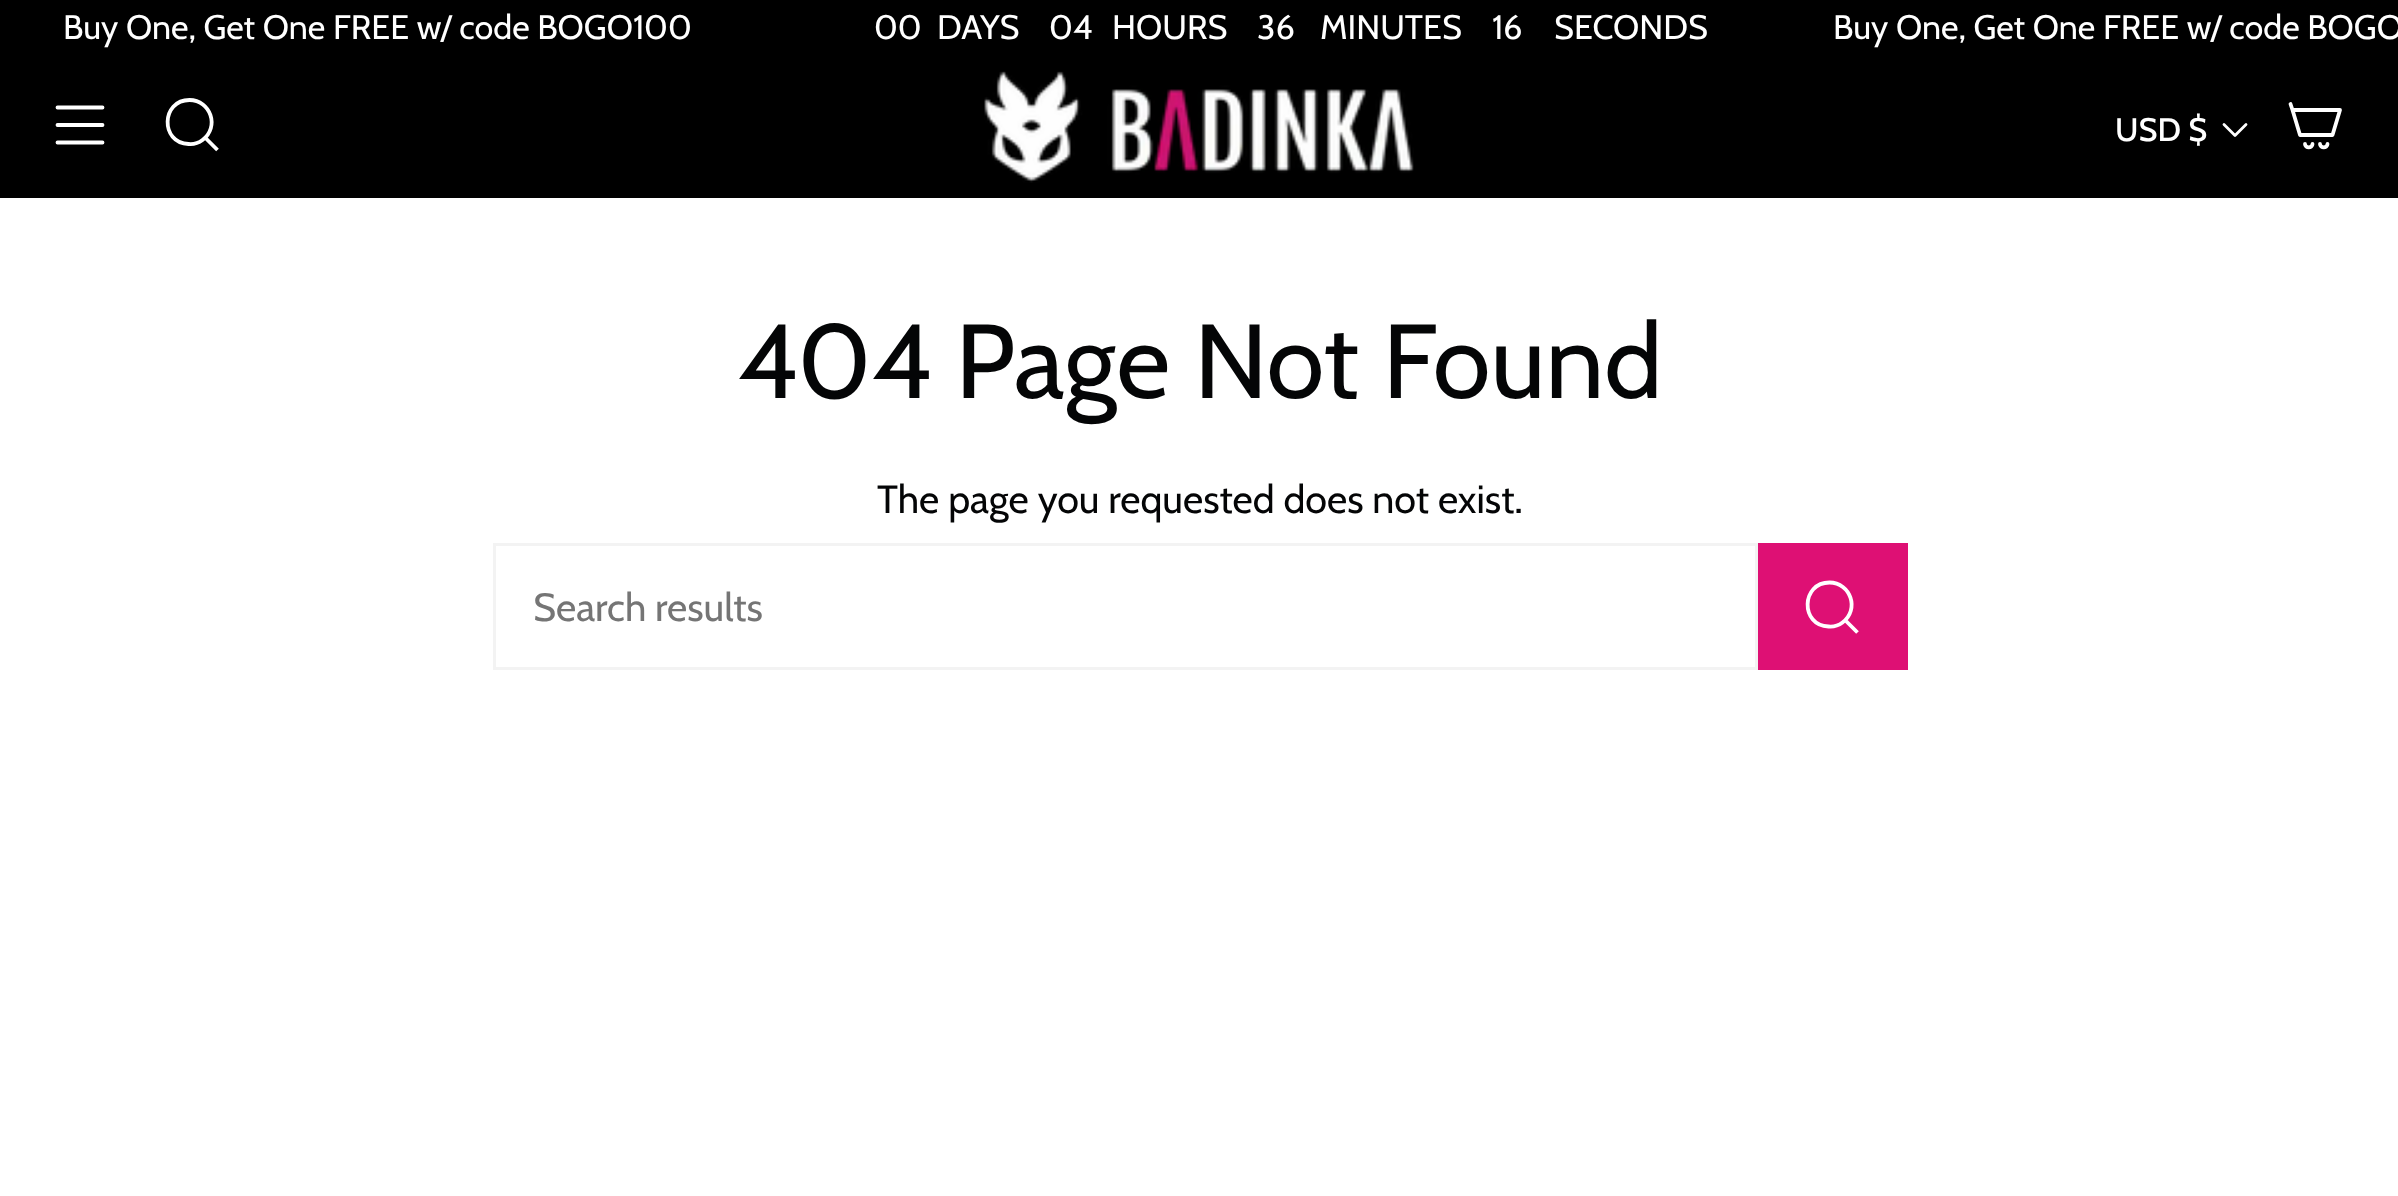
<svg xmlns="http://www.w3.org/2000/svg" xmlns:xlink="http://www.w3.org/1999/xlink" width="2398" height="1196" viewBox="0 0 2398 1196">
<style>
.cls-1{font:34.1px Cabin;fill:#ffffff}
.cls-2{font:500 32.5px Cabin;fill:#ffffff}
.cls-3{font:105px Cabin;fill:#040506}
.cls-4{font:39.4px Cabin;fill:#040506}
.cls-5{font:39.4px Cabin;fill:#757575}
</style>
<rect width="100%" height="100%" fill="#ffffff"/>
<rect fill="#000000" x="0" y="0" width="2398" height="198"/>
<path fill="none" stroke="#ffffff" stroke-width="3.8" stroke-linecap="round" stroke-linejoin="round" d="M57.5 107.5H102.5M57.5 125H102.5M57.5 142.5H102.5"/>
<path fill="none" stroke="#ffffff" stroke-width="3.8" d="M189.5 100C210.5 100 220 127 202.5 140C198.5 143 193.5 144.5 188.5 144C160 143 161 100 189.5 100ZM205.5 138L217.5 150"/>
<image xlink:href="image0.png" x="984" y="71" width="430" height="112"/>
<path fill="none" stroke="#ffffff" stroke-width="2.8" stroke-linecap="round" stroke-linejoin="round" d="M2224 124.5L2235 135.5L2246 124.5"/>
<path fill="none" stroke="#ffffff" stroke-width="3.8" stroke-linecap="round" stroke-linejoin="round" d="M2292.5 110H2340L2332.5 135H2300ZM2292.5 110L2290.5 104M2312.5 144C2312.5 148.5 2305 148.5 2305 144M2327.5 144C2327.5 148.5 2320 148.5 2320 144"/>
<rect fill="none" stroke="#f3f3f3" stroke-width="3" x="494.5" y="544.5" width="1262" height="124"/>
<rect fill="#de1074" x="1758" y="543" width="150" height="127"/>
<path fill="none" stroke="#ffffff" stroke-width="3.8" d="M1829.5 582.5C1850.5 582.5 1860 609.5 1842.5 622.5C1838.5 625.5 1833.5 627 1828.5 626.5C1800 625.5 1801 582.5 1829.5 582.5ZM1845.5 620.5L1857.5 632.5"/>
<text class="cls-1" x="63" y="39">Buy One, Get One FREE w/ code BOGO100</text>
<text class="cls-1" x="874" y="39">00</text>
<text class="cls-1" x="937" y="39">DAYS</text>
<text class="cls-1" x="1049" y="39">04</text>
<text class="cls-1" x="1112" y="39">HOURS</text>
<text class="cls-1" x="1257" y="39">36</text>
<text class="cls-1" x="1320" y="39">MINUTES</text>
<text class="cls-1" x="1492" y="39">16</text>
<text class="cls-1" x="1554" y="39">SECONDS</text>
<text class="cls-1" x="1833" y="39">Buy One, Get One FREE w/ code BOGO</text>
<text class="cls-2" x="2115" y="141">USD $</text>
<text class="cls-3" x="737" y="398">404 Page Not Found</text>
<text class="cls-4" x="877" y="513">The page you requested does not exist.</text>
<text class="cls-5" x="533" y="621">Search results</text>
</svg>
